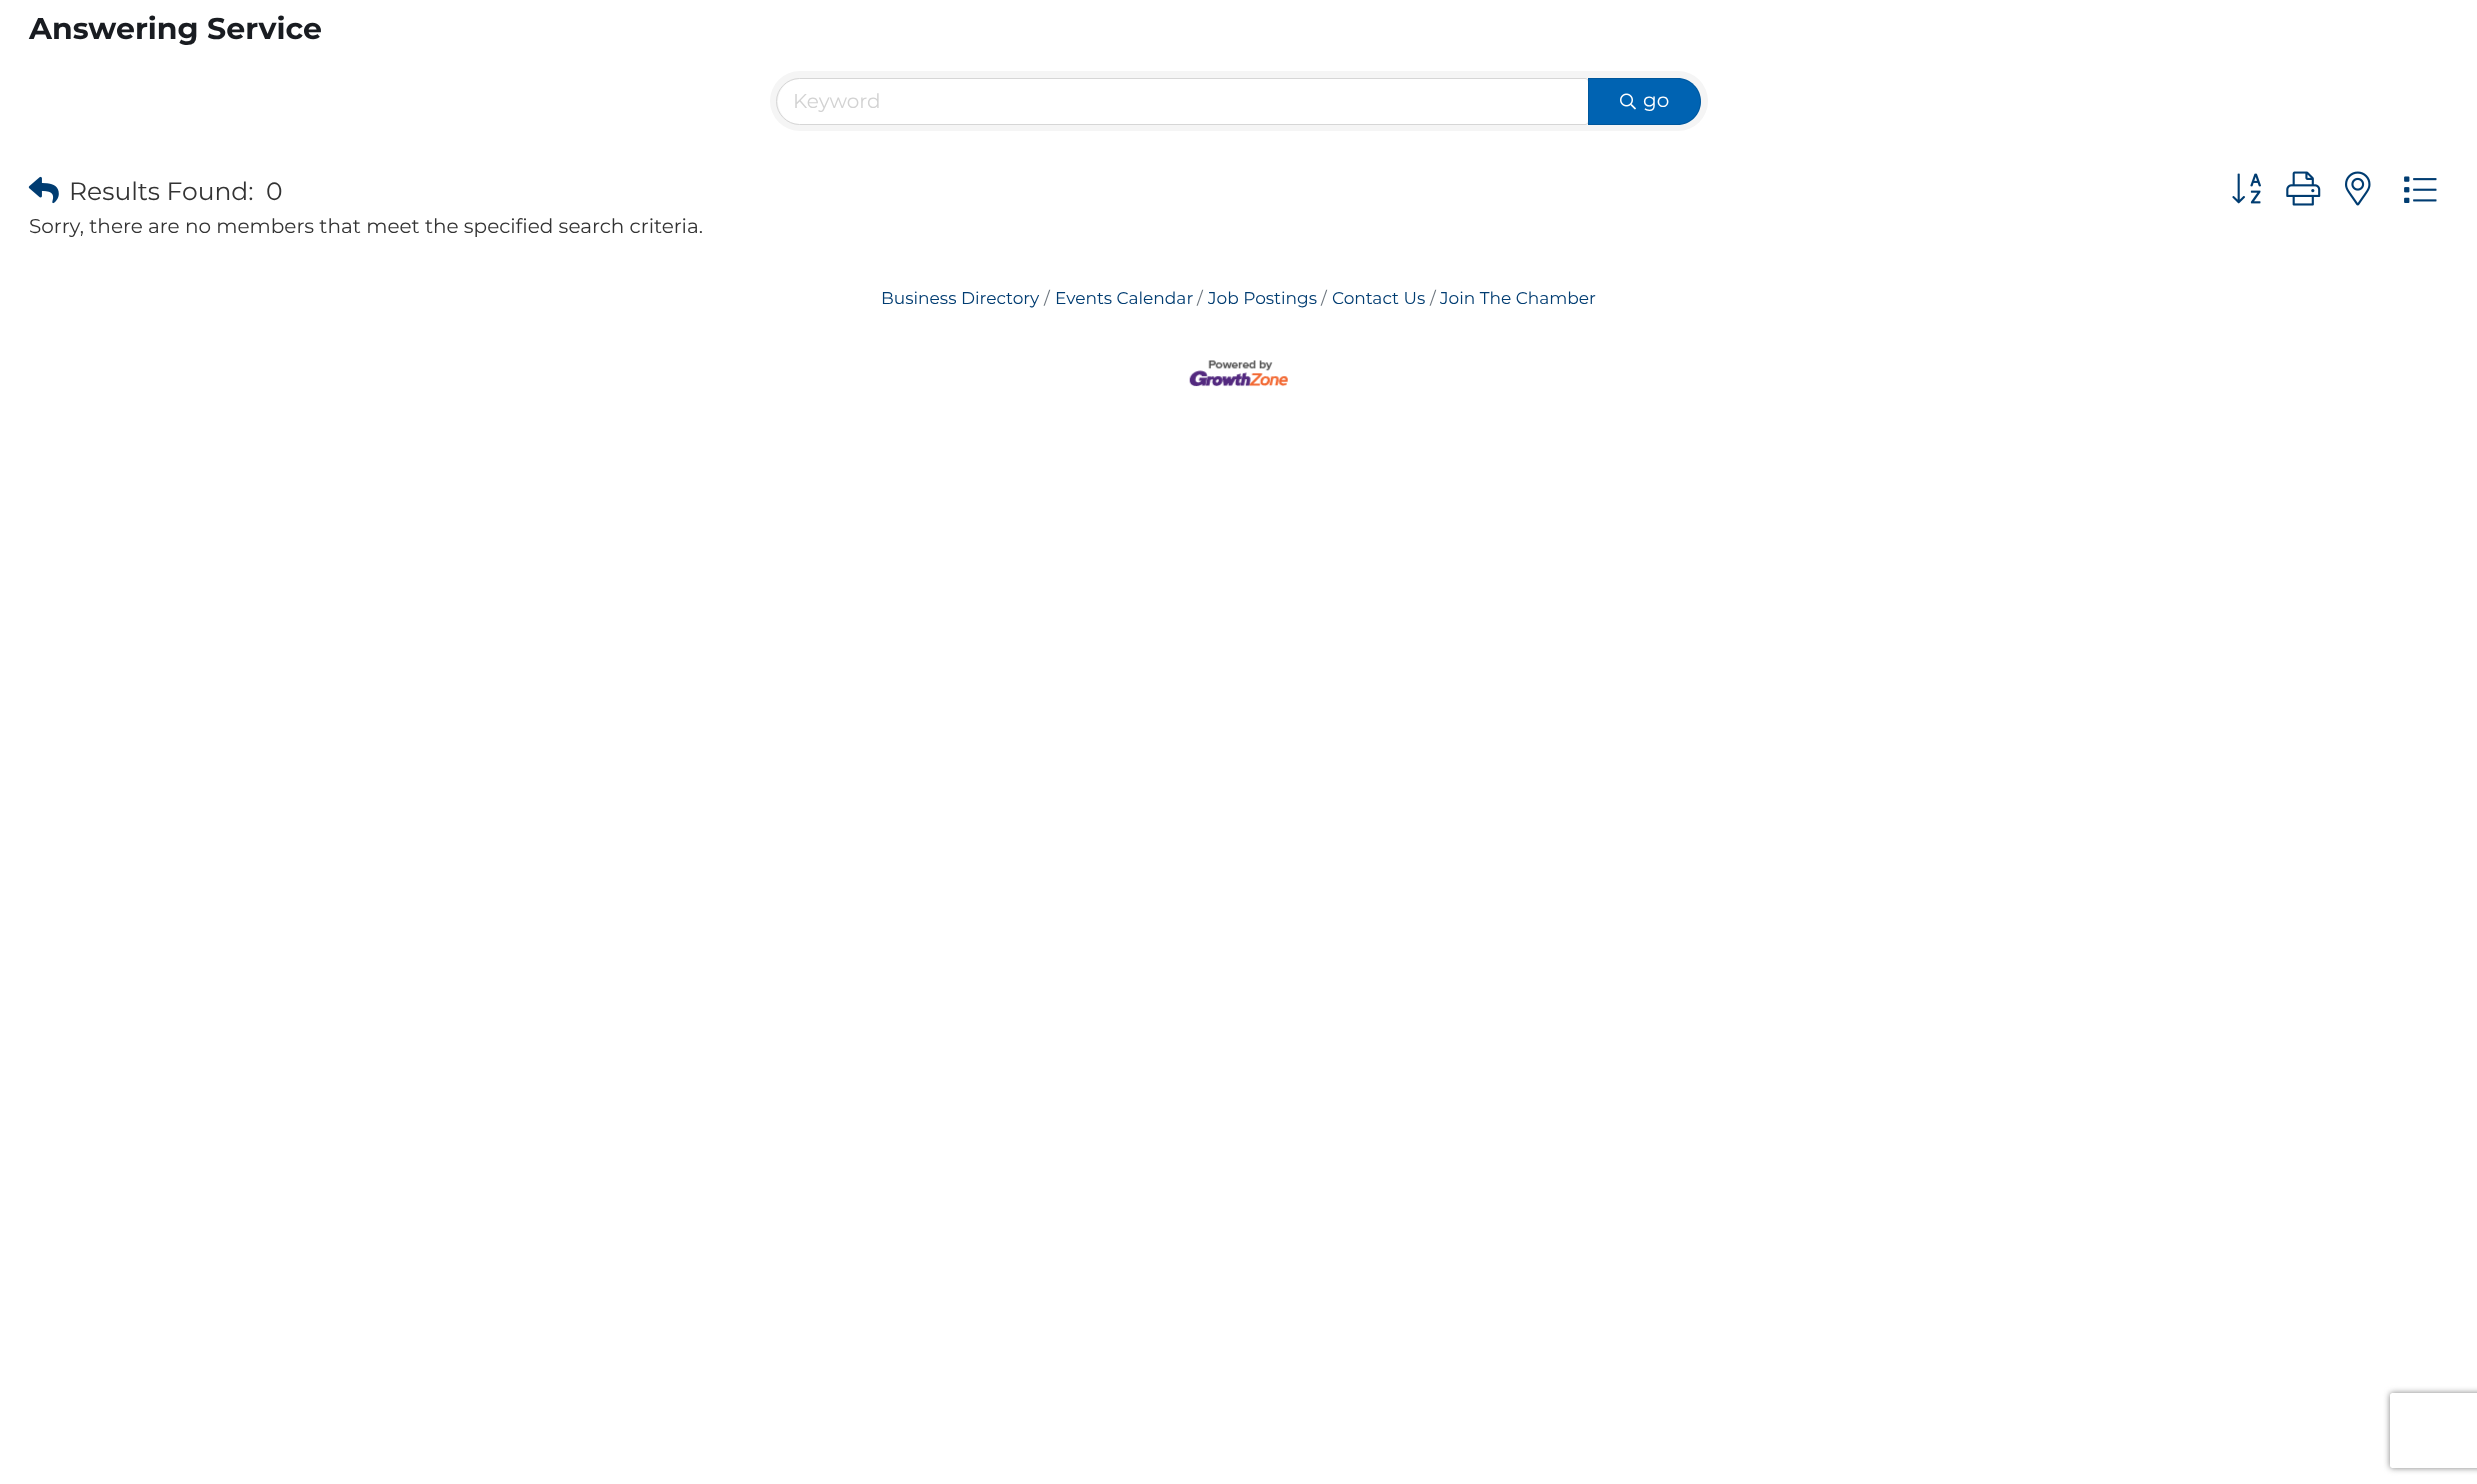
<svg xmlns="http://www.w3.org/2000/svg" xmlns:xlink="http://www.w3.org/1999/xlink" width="2477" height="1484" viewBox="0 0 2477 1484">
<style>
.cls-1{font:bold 30px Montserrat;fill:#191c21}
.cls-2{font:20px Montserrat;fill:#d2d2d2}
.cls-3{font:20px Montserrat;fill:#ffffff}
.cls-4{font:25px Montserrat;fill:#333333}
.cls-5{font:20px Montserrat;fill:#333333}
.cls-6{font:17px Montserrat;fill:#003c71}
.cls-7{font:17px Montserrat;fill:#6c757d}
</style>
<defs>
<clipPath id="clip1"><path d="M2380 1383H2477V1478H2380ZM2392.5 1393H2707.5C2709 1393 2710 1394 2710 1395.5V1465.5C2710 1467 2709 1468 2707.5 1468H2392.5C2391 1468 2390 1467 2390 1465.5V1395.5C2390 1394 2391 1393 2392.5 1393Z" clip-rule="evenodd"/></clipPath>
</defs>
<rect width="100%" height="100%" fill="#ffffff"/>
<rect fill="#f5f5f5" x="770" y="71" width="938" height="60" rx="30"/>
<path fill="#ffffff" d="M800.5 79H1585.5C1587 79 1588 80 1588 81.5V121.5C1588 123 1587 124 1585.5 124H800.5C788 124 778 114 778 101.5C778 89 788 79 800.5 79Z"/>
<path fill="none" stroke="#d6d6d6" d="M799.5 78.5H1585C1587 78.5 1588.5 80 1588.5 82V121C1588.5 123 1587 124.5 1585 124.5H799.5C787 124.5 776.5 114 776.5 101.5C776.5 89 787 78.5 799.5 78.5Z"/>
<path fill="#0063b2" d="M1588 78H1677.5C1690.5 78 1701 88.5 1701 101.5C1701 114.5 1690.5 125 1677.5 125H1588Z"/>
<path fill="none" stroke="#000000" stroke-opacity="0.12" d="M1588.5 78.5H1677.5C1690 78.5 1700.5 89 1700.5 101.5C1700.5 114 1690 124.5 1677.5 124.5H1588.5Z"/>
<image xlink:href="image0.png" x="1620" y="93" width="16" height="17"/>
<image xlink:href="image1.png" x="28" y="176" width="31" height="28"/>
<image xlink:href="image2.png" x="2232" y="173" width="29" height="31"/>
<image xlink:href="image3.png" x="2286" y="171" width="35" height="35"/>
<image xlink:href="image4.png" x="2345" y="171" width="26" height="35"/>
<image xlink:href="image5.png" x="2404" y="176" width="33" height="27"/>
<image xlink:href="image6.png" x="1189" y="360" width="99" height="27"/>
<g clip-path="url(#clip1)">
<rect fill="#808080" filter="blur(3px)" x="2390" y="1393" width="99" height="75" rx="2.5"/>
</g>
<text class="cls-1" x="29" y="39">Answering Service</text>
<text class="cls-2" x="793" y="108">Keyword</text>
<text class="cls-3" x="1643" y="107">go</text>
<text class="cls-4" x="69" y="200">Results Found:</text>
<text class="cls-4" x="266" y="200">0</text>
<text class="cls-5" x="29" y="233">Sorry, there are no members that meet the specified search criteria.</text>
<text class="cls-6" x="881" y="304">Business Directory</text>
<text class="cls-7" x="1044" y="304">/</text>
<text class="cls-6" x="1055" y="304">Events Calendar</text>
<text class="cls-7" x="1197" y="304">/</text>
<text class="cls-6" x="1208" y="304">Job Postings</text>
<text class="cls-7" x="1321" y="304">/</text>
<text class="cls-6" x="1332" y="304">Contact Us</text>
<text class="cls-7" x="1430" y="304">/</text>
<text class="cls-6" x="1440" y="304">Join The Chamber</text>
</svg>
